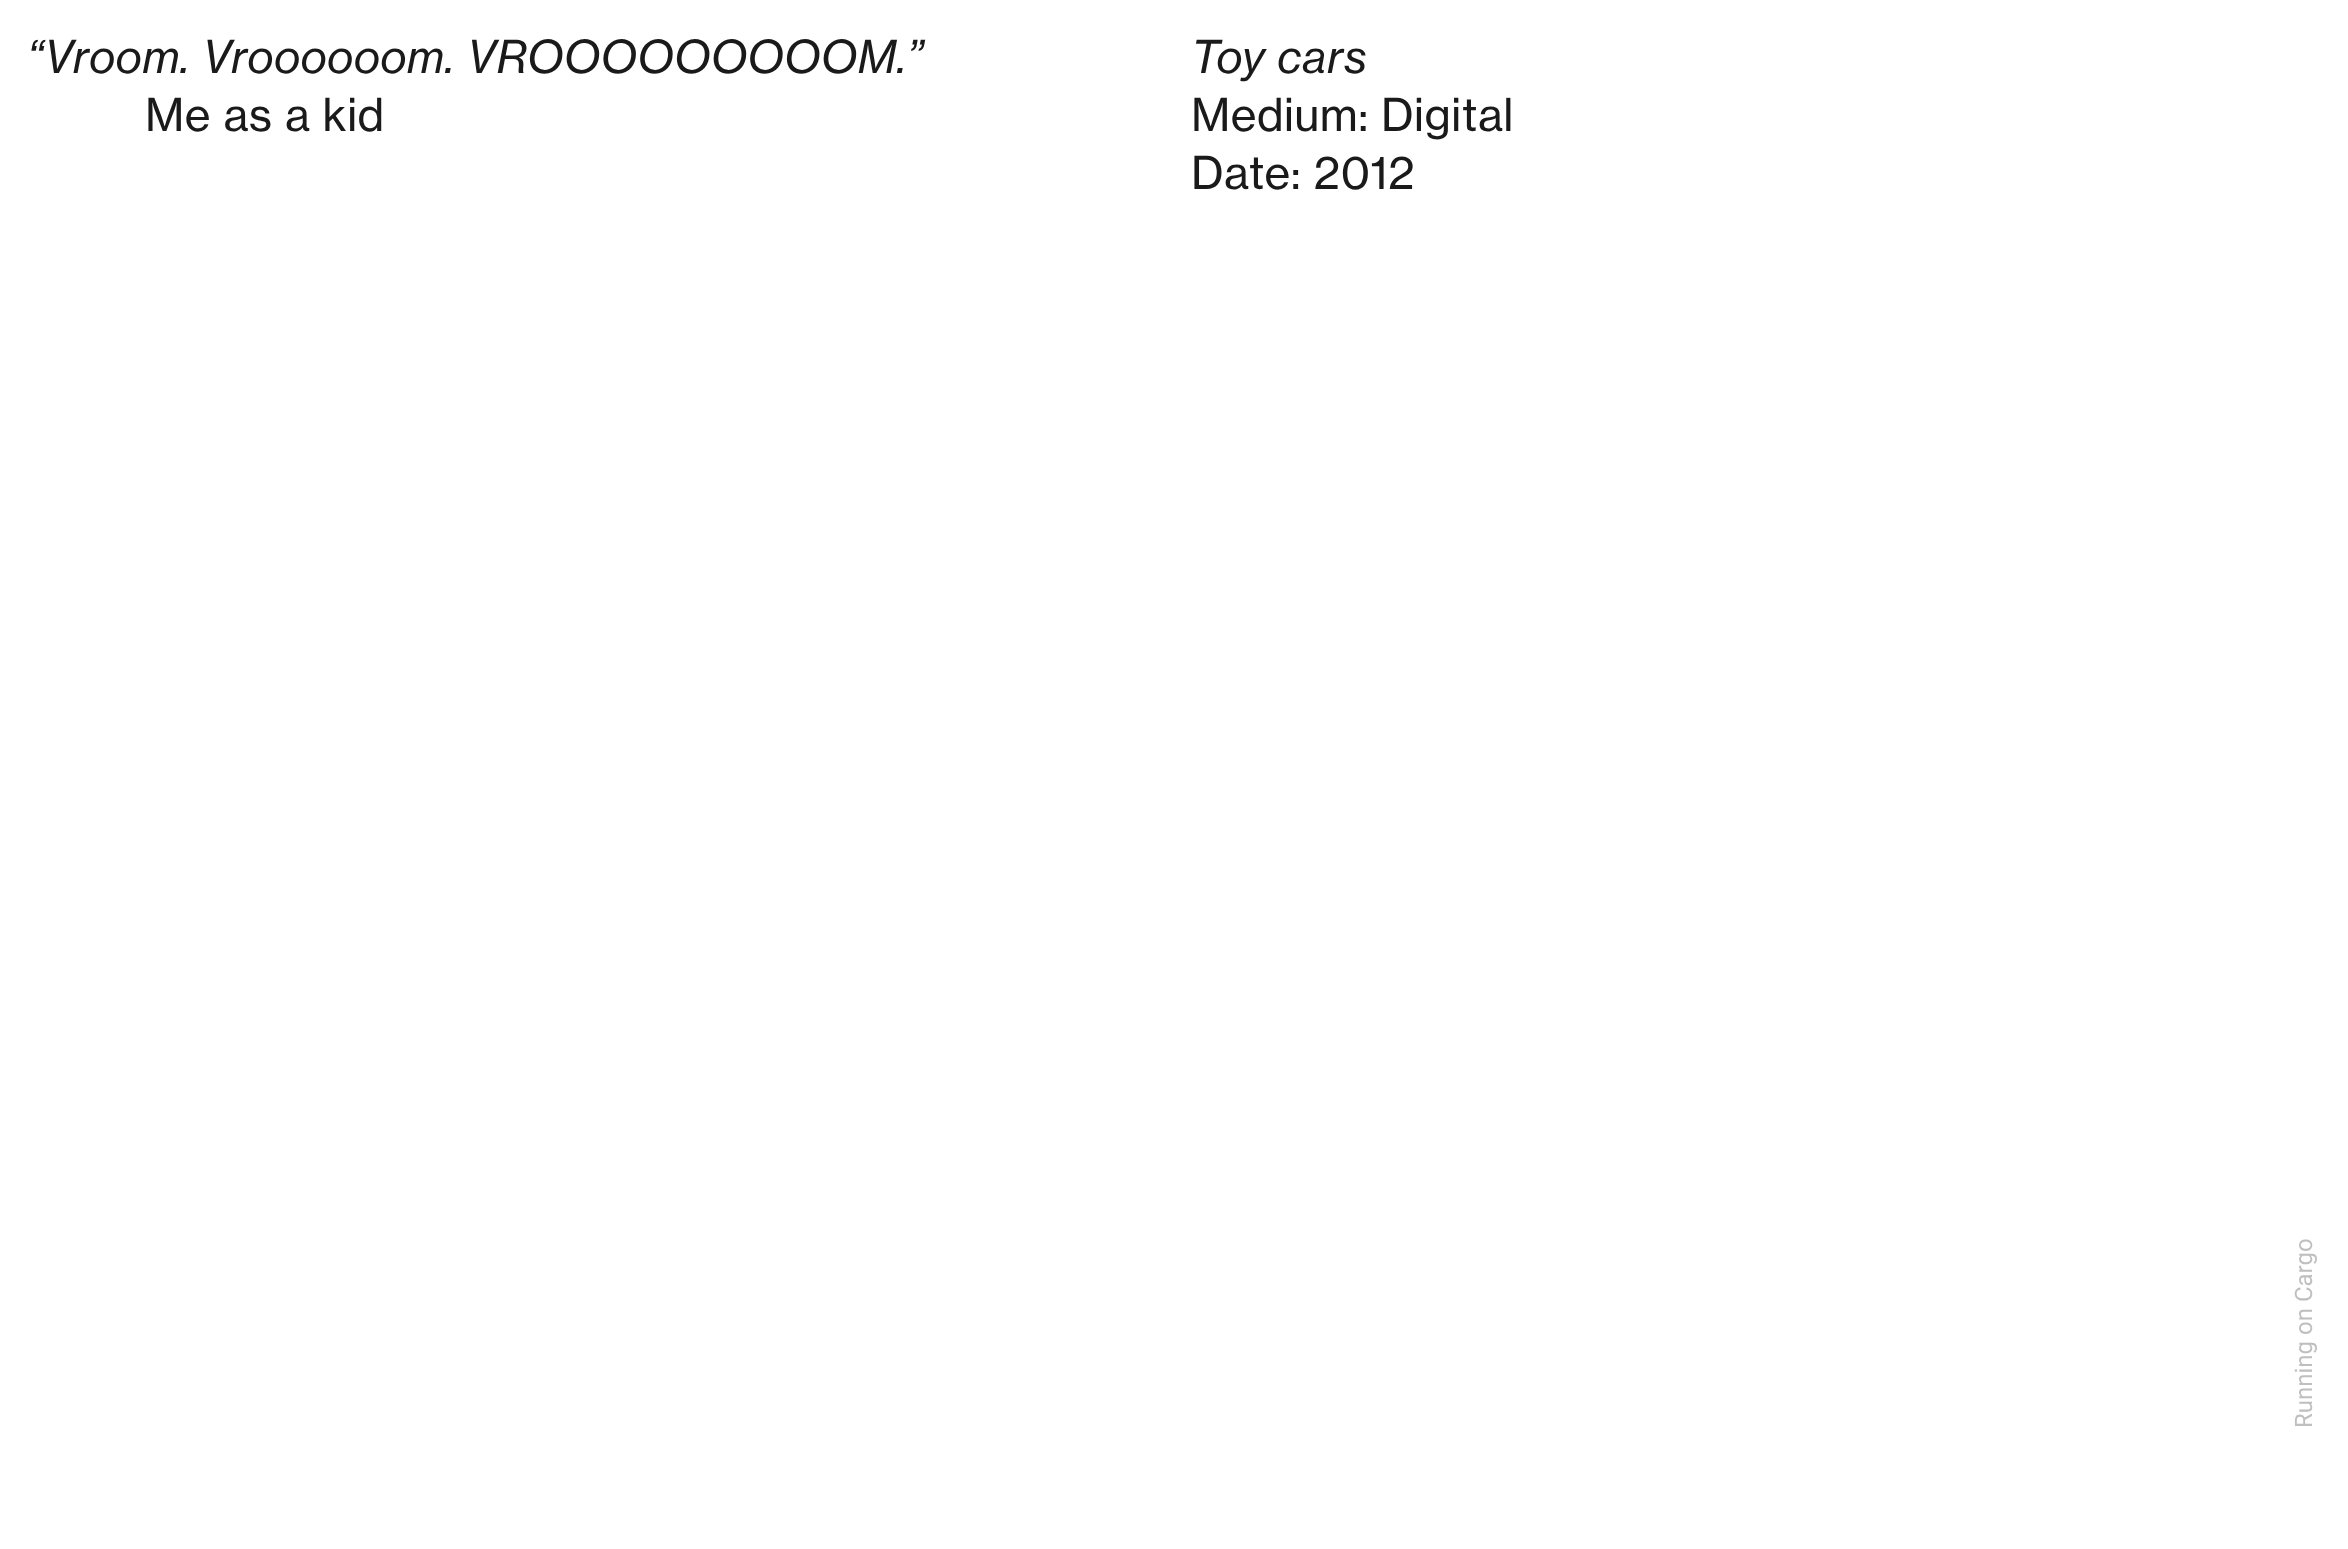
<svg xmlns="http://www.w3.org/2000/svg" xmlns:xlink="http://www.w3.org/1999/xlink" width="2348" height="1549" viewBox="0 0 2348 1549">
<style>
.cls-1{font:italic 44.6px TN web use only;letter-spacing:0.45px;fill:#1a1a1a}
.cls-2{font:44.6px TN web use only;letter-spacing:0.45px;fill:#1a1a1a}
.cls-3{font:24px Roboto;fill:#bfbfbf}
</style>
<rect width="100%" height="100%" fill="#ffffff"/>
<text class="cls-1" x="27" y="73">“Vroom. Vroooooom. VROOOOOOOOOM.”</text>
<text class="cls-2" x="145" y="131">Me as a kid</text>
<text class="cls-1" x="1191" y="73">Toy cars</text>
<text class="cls-2"><tspan x="1191" y="131">Medium: Digital</tspan><tspan x="1191" y="189">Date: 2012</tspan></text>
<text class="cls-3" x="2312" y="1428" transform="rotate(-90 2312 1428)">Running on Cargo</text>
</svg>
